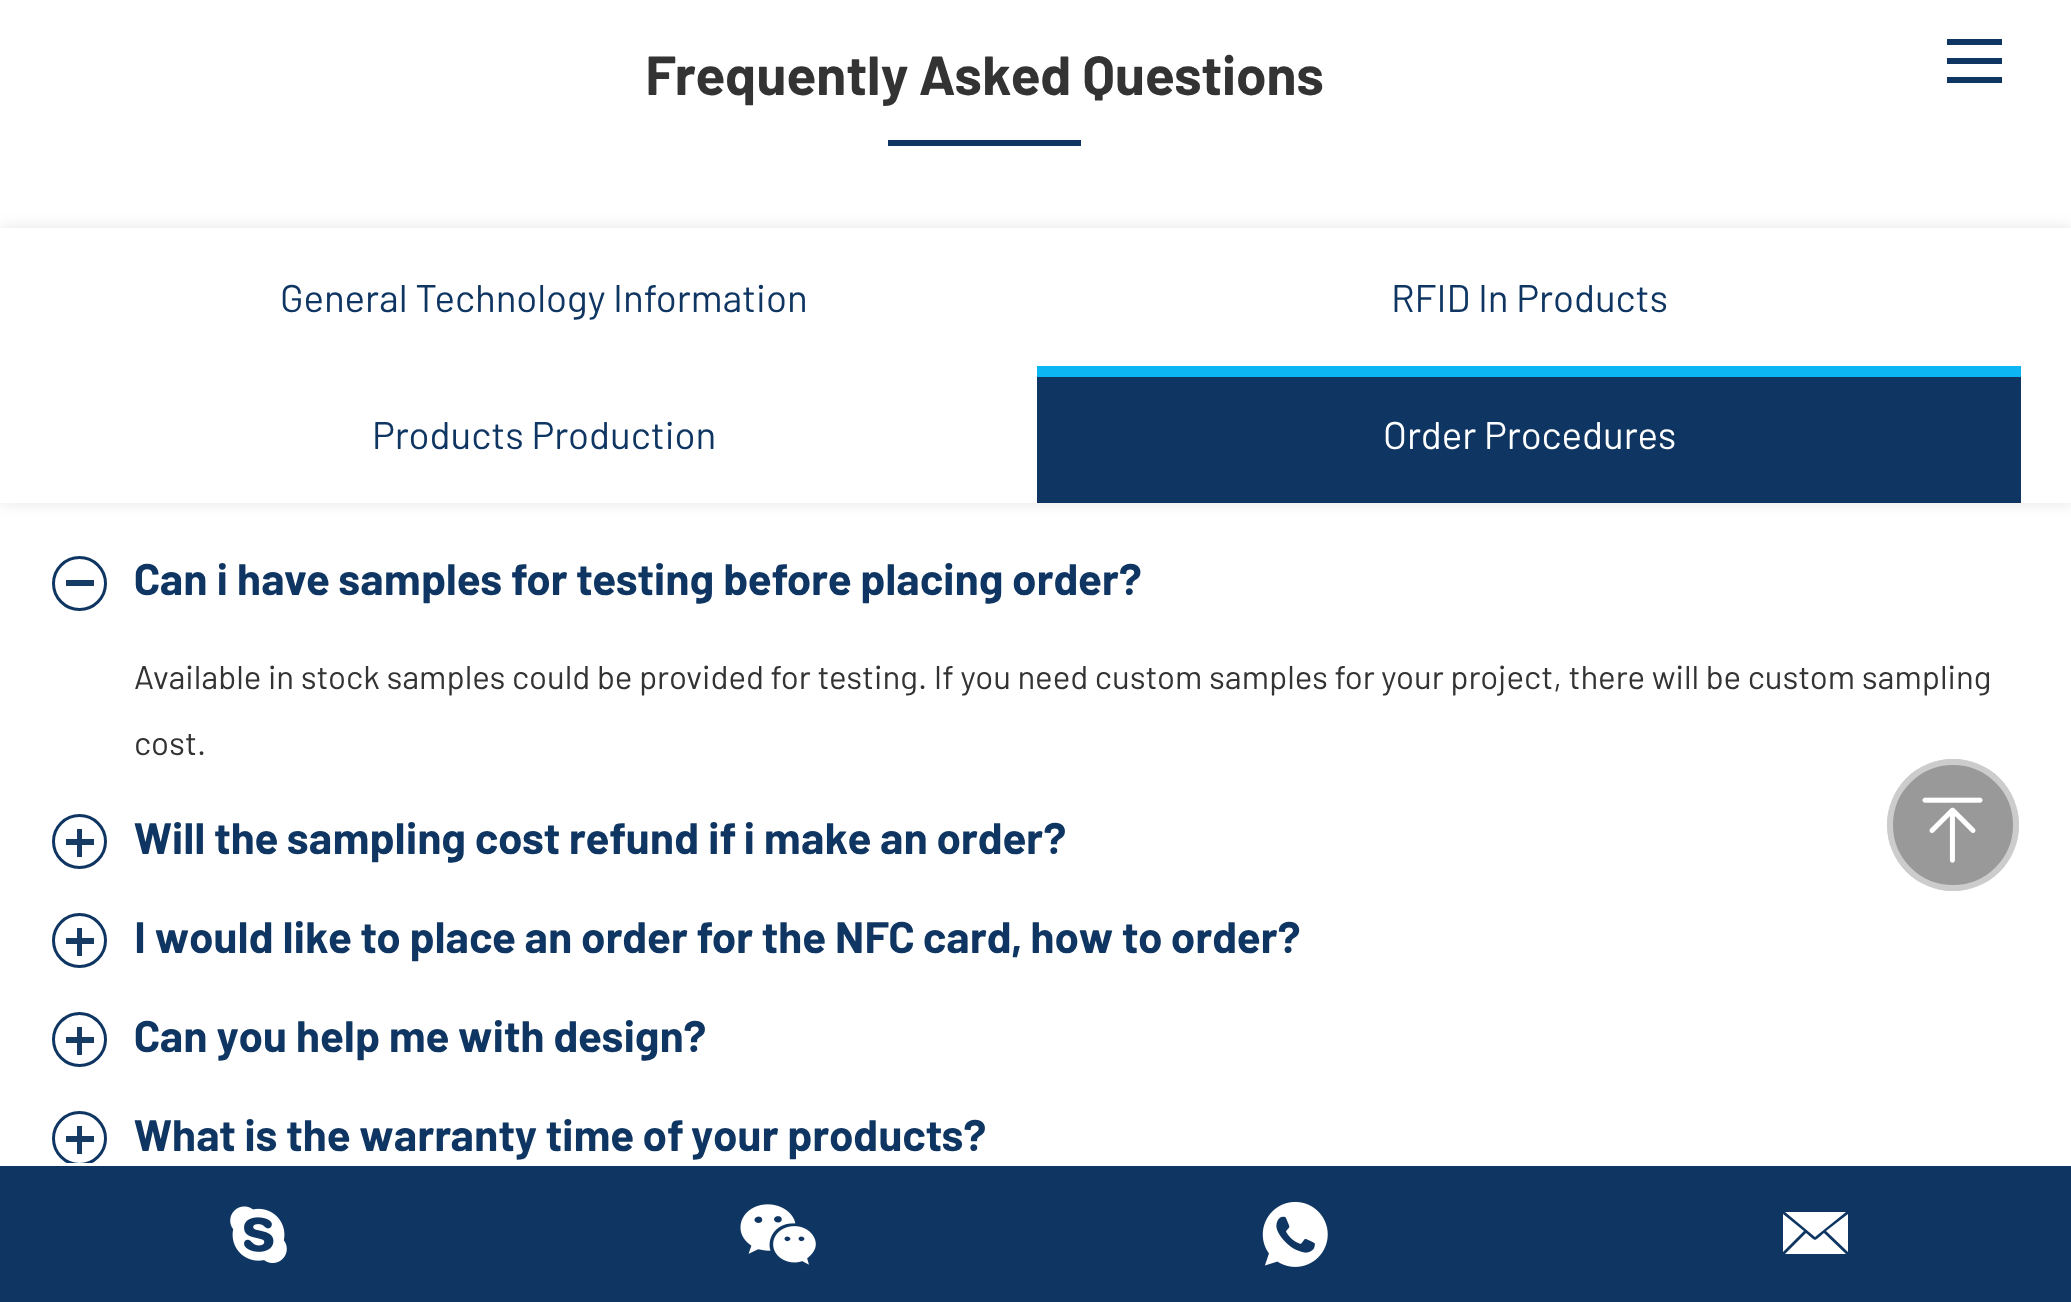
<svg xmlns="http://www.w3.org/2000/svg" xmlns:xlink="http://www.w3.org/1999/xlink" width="2071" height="1302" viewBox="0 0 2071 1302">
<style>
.cls-1{font:bold 55px Barlow;fill:#333333}
.cls-2{font:38.5px Barlow;fill:#0f3662}
.cls-3{font:38.5px Barlow;fill:#ffffff}
.cls-4{font:bold 44px Barlow;fill:#0f3662}
.cls-5{font:33px Barlow;fill:#333333}
</style>
<defs>
<clipPath id="clip1"><path d="M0 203H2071V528H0ZM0 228H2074V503H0Z" clip-rule="evenodd"/></clipPath>
</defs>
<rect width="100%" height="100%" fill="#ffffff"/>
<rect fill="#0f3662" x="1947" y="39" width="55" height="6"/>
<rect fill="#0f3662" x="1947" y="58" width="55" height="6"/>
<rect fill="#0f3662" x="1947" y="77" width="55" height="6"/>
<rect fill="#0f3662" x="888" y="140" width="193" height="6"/>
<g clip-path="url(#clip1)">
<rect fill="#000000" fill-opacity="0.1" filter="blur(8px)" x="0" y="228" width="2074" height="275"/>
</g>
<rect fill="#0f3662" x="1037" y="377" width="984" height="126"/>
<rect fill="#0cb6f4" x="1037" y="366" width="984" height="11"/>
<circle fill="none" stroke="#0f3662" stroke-width="3" cx="79.5" cy="583.5" r="26"/>
<rect fill="#163c66" x="66" y="580" width="28" height="6"/>
<circle fill="none" stroke="#0f3662" stroke-width="3" cx="79.5" cy="841.5" r="26"/>
<rect fill="#163c66" x="66" y="839" width="28" height="6"/>
<rect fill="#163c66" x="77" y="829" width="5" height="28"/>
<circle fill="none" stroke="#0f3662" stroke-width="3" cx="79.5" cy="940.5" r="26"/>
<rect fill="#163c66" x="66" y="938" width="28" height="6"/>
<rect fill="#163c66" x="77" y="928" width="5" height="28"/>
<circle fill="none" stroke="#0f3662" stroke-width="3" cx="79.5" cy="1039.5" r="26"/>
<rect fill="#163c66" x="66" y="1037" width="28" height="6"/>
<rect fill="#163c66" x="77" y="1027" width="5" height="28"/>
<circle fill="none" stroke="#0f3662" stroke-width="3" cx="79.5" cy="1138.5" r="26"/>
<rect fill="#163c66" x="66" y="1136" width="28" height="6"/>
<rect fill="#163c66" x="77" y="1126" width="5" height="28"/>
<circle fill="#999999" cx="1953" cy="825" r="66"/>
<circle fill="none" stroke="#ffffff" stroke-opacity="0.5" stroke-width="6" cx="1953" cy="825" r="63"/>
<image xlink:href="image0.png" x="1922" y="797" width="61" height="66"/>
<rect fill="#ffffff" x="67" y="1163" width="25" height="3"/>
<rect fill="#0f3662" x="0" y="1166" width="2071" height="136"/>
<image xlink:href="image1.png" x="230" y="1206" width="57" height="57"/>
<image xlink:href="image2.png" x="740" y="1204" width="76" height="61"/>
<image xlink:href="image3.png" x="1262" y="1201" width="66" height="66"/>
<path fill="#ffffff" d="M1815 1237L1785 1212H1846ZM1848 1252L1826 1231L1848 1214ZM1783 1252V1214L1804 1231ZM1845 1254H1785L1806 1233C1817 1242 1813 1242 1824 1233L1846 1254Z"/>
<text class="cls-1" x="645" y="95">Frequently Asked Questions</text>
<text class="cls-2" x="280" y="312">General Technology Information</text>
<text class="cls-2" x="1391" y="312">RFID In Products</text>
<text class="cls-2" x="372" y="449">Products Production</text>
<text class="cls-3" x="1383" y="449">Order Procedures</text>
<text class="cls-4" x="134" y="595">Can i have samples for testing before placing order?</text>
<text class="cls-5" x="134" y="689">Available in stock samples could be provided for testing. If you need custom samples for your project, there will be custom sampling</text>
<text class="cls-5" x="134" y="755">cost.</text>
<text class="cls-4" x="134" y="854">Will the sampling cost refund if i make an order?</text>
<text class="cls-4" x="134" y="953">I would like to place an order for the NFC card, how to order?</text>
<text class="cls-4" x="134" y="1052">Can you help me with design?</text>
<text class="cls-4" x="134" y="1151">What is the warranty time of your products?</text>
</svg>
